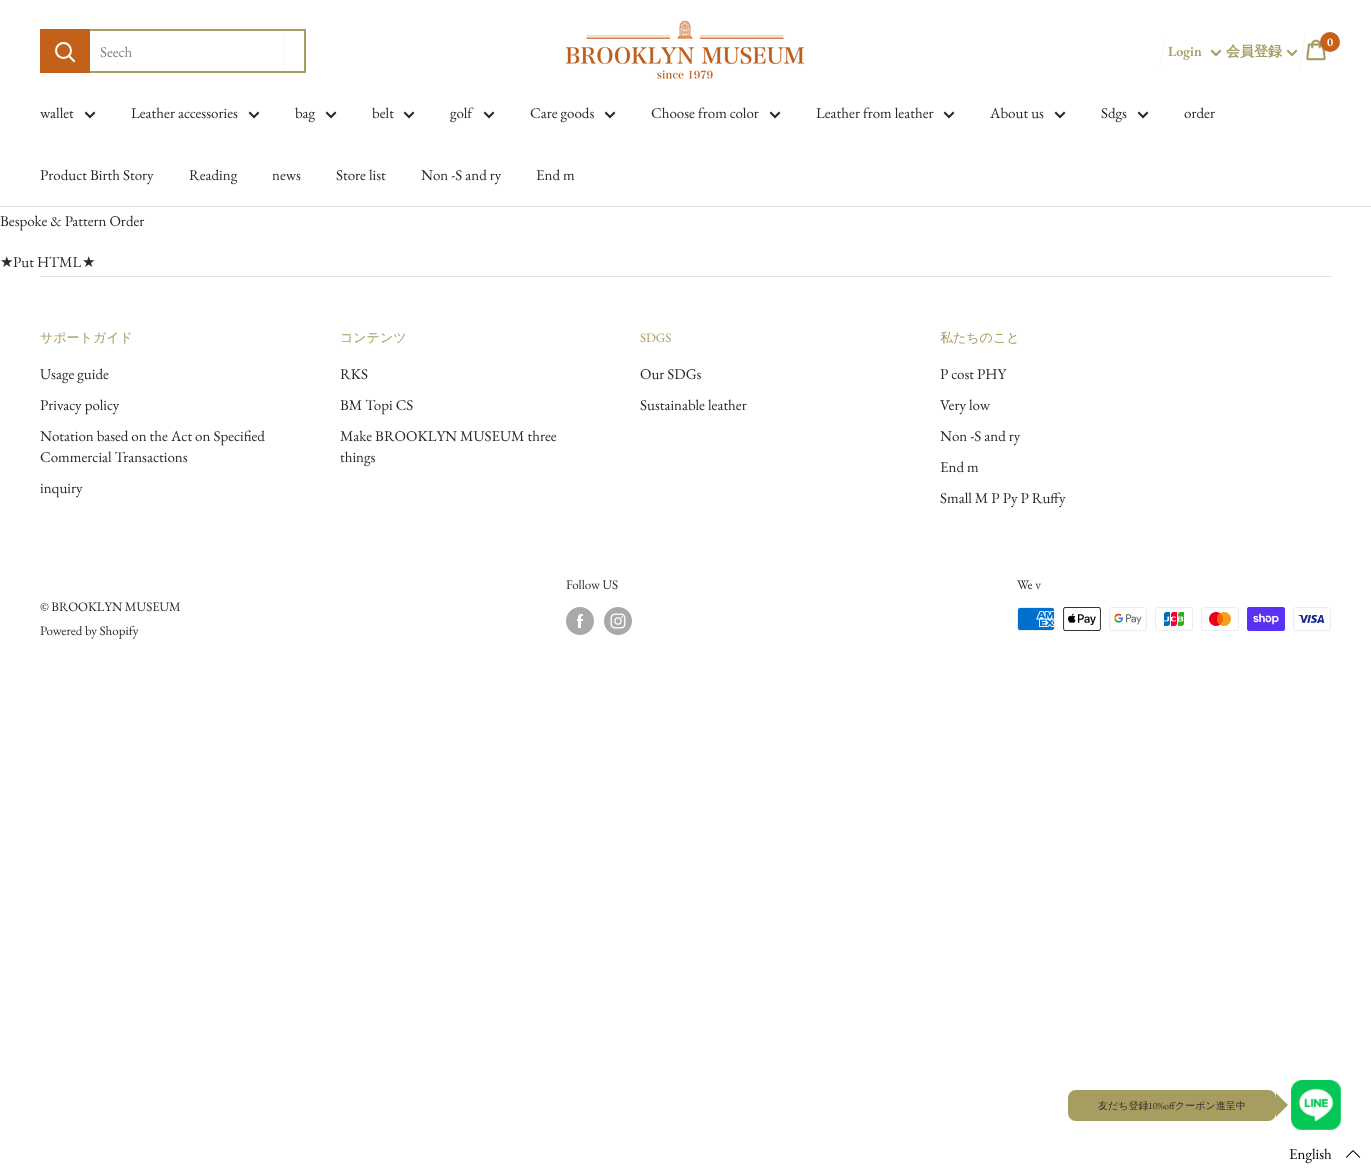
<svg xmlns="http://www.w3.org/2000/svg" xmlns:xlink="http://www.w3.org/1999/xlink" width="1371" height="1173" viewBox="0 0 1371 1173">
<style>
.cls-1{font:15px EB Garamond;fill:#808080}
.cls-2{font:600 12px EB Garamond;fill:#ffffff}
.cls-3{font:600 14px EB Garamond;fill:#a69d61}
.cls-4{font:bold 14px WenQuanYi Zen Hei;fill:#a69d61}
.cls-5{font:15px EB Garamond;fill:#282828}
.cls-6{font:15px DejaVu Sans;fill:#282828}
.cls-7{font:500 13px WenQuanYi Zen Hei;fill:#a69d61}
.cls-8{font:13px EB Garamond;fill:#a69d61}
.cls-9{font:13px EB Garamond;fill:#282828}
.cls-10{font:500 10px WenQuanYi Zen Hei;fill:#3a2a2f}
.cls-11{font:10px EB Garamond;fill:#3a2a2f}
.cls-12{font:15px EB Garamond;fill:#000000}
</style>
<rect width="100%" height="100%" fill="#ffffff"/>
<path fill="#f8f6f5" d="M41 72C41 73 42 73 43 73H282C284 73 285 72 285 70V32C285 31 285 30 284 30V63C284 65 286 72 281 72Z"/>
<rect fill="#c5601a" x="40" y="29" width="50" height="44"/>
<path fill="none" stroke="#ffffff" stroke-width="2" stroke-linecap="square" d="M74 61L69 56"/>
<circle fill="none" stroke="#ffffff" stroke-width="2" cx="63.5" cy="50.5" r="7.5"/>
<rect fill="#a69d61" x="90" y="29" width="216" height="2"/>
<rect fill="#a69d61" x="304" y="29" width="2" height="44"/>
<rect fill="#a69d61" x="90" y="71" width="216" height="2"/>
<image xlink:href="image0.png" x="565" y="20" width="240" height="59"/>
<path fill="#f8f6f5" d="M1165.5 34L1166 34.5L1160.5 68L1159.5 67.5Z"/>
<image xlink:href="image1.png" x="1306" y="39" width="20" height="22"/>
<circle fill="#c5601a" cx="1330" cy="42" r="10"/>
<path fill="none" stroke="#a69d61" stroke-width="2" stroke-linecap="square" d="M1220 51L1216 55L1212 51"/>
<path fill="none" stroke="#a69d61" stroke-width="2" stroke-linecap="square" d="M1296 51L1292 55L1288 51"/>
<path fill="#f8f6f5" d="M1305 34L1306 34.5L1300 68L1299 67.5Z"/>
<rect fill="#e7e2de" x="0" y="206" width="1371" height="1"/>
<path fill="none" stroke="#282828" stroke-width="2" stroke-linecap="square" d="M94 113L90 117L86 113"/>
<path fill="none" stroke="#282828" stroke-width="2" stroke-linecap="square" d="M258 113L254 117L250 113"/>
<path fill="none" stroke="#282828" stroke-width="2" stroke-linecap="square" d="M335 113L331 117L327 113"/>
<path fill="none" stroke="#282828" stroke-width="2" stroke-linecap="square" d="M413 113L409 117L405 113"/>
<path fill="none" stroke="#282828" stroke-width="2" stroke-linecap="square" d="M493 113L489 117L485 113"/>
<path fill="none" stroke="#282828" stroke-width="2" stroke-linecap="square" d="M614 113L610 117L606 113"/>
<path fill="none" stroke="#282828" stroke-width="2" stroke-linecap="square" d="M779 113L775 117L771 113"/>
<path fill="none" stroke="#282828" stroke-width="2" stroke-linecap="square" d="M953 113L949 117L945 113"/>
<path fill="none" stroke="#282828" stroke-width="2" stroke-linecap="square" d="M1064 113L1060 117L1056 113"/>
<path fill="none" stroke="#282828" stroke-width="2" stroke-linecap="square" d="M1147 113L1143 117L1139 113"/>
<rect fill="#e7e2de" x="40" y="276" width="1291" height="1"/>
<image xlink:href="image2.png" x="566" y="607" width="28" height="28"/>
<image xlink:href="image3.png" x="604" y="607" width="28" height="28"/>
<image xlink:href="image4.png" x="1017" y="607" width="38" height="24"/>
<image xlink:href="image5.png" x="1063" y="607" width="38" height="24"/>
<image xlink:href="image6.png" x="1109" y="607" width="38" height="24"/>
<image xlink:href="image7.png" x="1155" y="607" width="38" height="24"/>
<image xlink:href="image8.png" x="1201" y="607" width="38" height="24"/>
<image xlink:href="image9.png" x="1247" y="607" width="38" height="24"/>
<image xlink:href="image10.png" x="1293" y="607" width="38" height="24"/>
<rect fill="#a69d61" x="1068" y="1090" width="208" height="31" rx="8"/>
<path fill="#a69d61" d="M1276 1117V1093L1288 1105Z"/>
<image xlink:href="image11.png" x="1291" y="1080" width="50" height="50"/>
<image xlink:href="image12.png" x="1345" y="1150" width="16" height="8"/>
<text class="cls-1" x="100" y="57">Seech</text>
<text class="cls-2" x="1327" y="46">0</text>
<text class="cls-3" x="1168" y="56">Login</text>
<text class="cls-4" x="1226" y="56">会員登録</text>
<text class="cls-5" x="40" y="118">wallet</text>
<text class="cls-5" x="131" y="118">Leather accessories</text>
<text class="cls-5" x="295" y="118">bag</text>
<text class="cls-5" x="372" y="118">belt</text>
<text class="cls-5" x="450" y="118">golf</text>
<text class="cls-5" x="530" y="118">Care goods</text>
<text class="cls-5" x="651" y="118">Choose from color</text>
<text class="cls-5" x="816" y="118">Leather from leather</text>
<text class="cls-5" x="990" y="118">About us</text>
<text class="cls-5" x="1101" y="118">Sdgs</text>
<text class="cls-5" x="1184" y="118">order</text>
<text class="cls-5" x="40" y="180">Product Birth Story</text>
<text class="cls-5" x="189" y="180">Reading</text>
<text class="cls-5" x="272" y="180">news</text>
<text class="cls-5" x="336" y="180">Store list</text>
<text class="cls-5" x="421" y="180">Non -S and ry</text>
<text class="cls-5" x="536" y="180">End m</text>
<text class="cls-5" x="0" y="226">Bespoke &amp; Pattern Order</text>
<text class="cls-6" x="0" y="267">★</text>
<text class="cls-5" x="13" y="267">Put HTML</text>
<text class="cls-6" x="82" y="267">★</text>
<text class="cls-7" x="40" y="342">サポートガイド</text>
<text class="cls-5" x="40" y="379">Usage guide</text>
<text class="cls-5" x="40" y="410">Privacy policy</text>
<text class="cls-5"><tspan x="40" y="441">Notation based on the Act on Specified</tspan><tspan x="40" y="462">Commercial Transactions</tspan></text>
<text class="cls-5" x="40" y="493">inquiry</text>
<text class="cls-7" x="340" y="342">コンテンツ</text>
<text class="cls-5" x="340" y="379">RKS</text>
<text class="cls-5" x="340" y="410">BM Topi CS</text>
<text class="cls-5"><tspan x="340" y="441">Make BROOKLYN MUSEUM three</tspan><tspan x="340" y="462">things</tspan></text>
<text class="cls-8" x="640" y="342">SDGS</text>
<text class="cls-5" x="640" y="379">Our SDGs</text>
<text class="cls-5" x="640" y="410">Sustainable leather</text>
<text class="cls-7" x="940" y="342">私たちのこと</text>
<text class="cls-5" x="940" y="379">P cost PHY</text>
<text class="cls-5" x="940" y="410">Very low</text>
<text class="cls-5" x="940" y="441">Non -S and ry</text>
<text class="cls-5" x="940" y="472">End m</text>
<text class="cls-5" x="940" y="503">Small M P Py P Ruffy</text>
<text class="cls-9" x="566" y="589">Follow US</text>
<text class="cls-9" x="1017" y="589">We v</text>
<text class="cls-9"><tspan x="40" y="611">© BROOKLYN MUSEUM</tspan><tspan x="40" y="635">Powered by Shopify</tspan></text>
<text class="cls-10" x="1098" y="1109">友だち登録</text>
<text class="cls-11" x="1148" y="1109">10%off</text>
<text class="cls-10" x="1175" y="1109">クーポン進呈中</text>
<text class="cls-12" x="1289" y="1159">English</text>
</svg>
